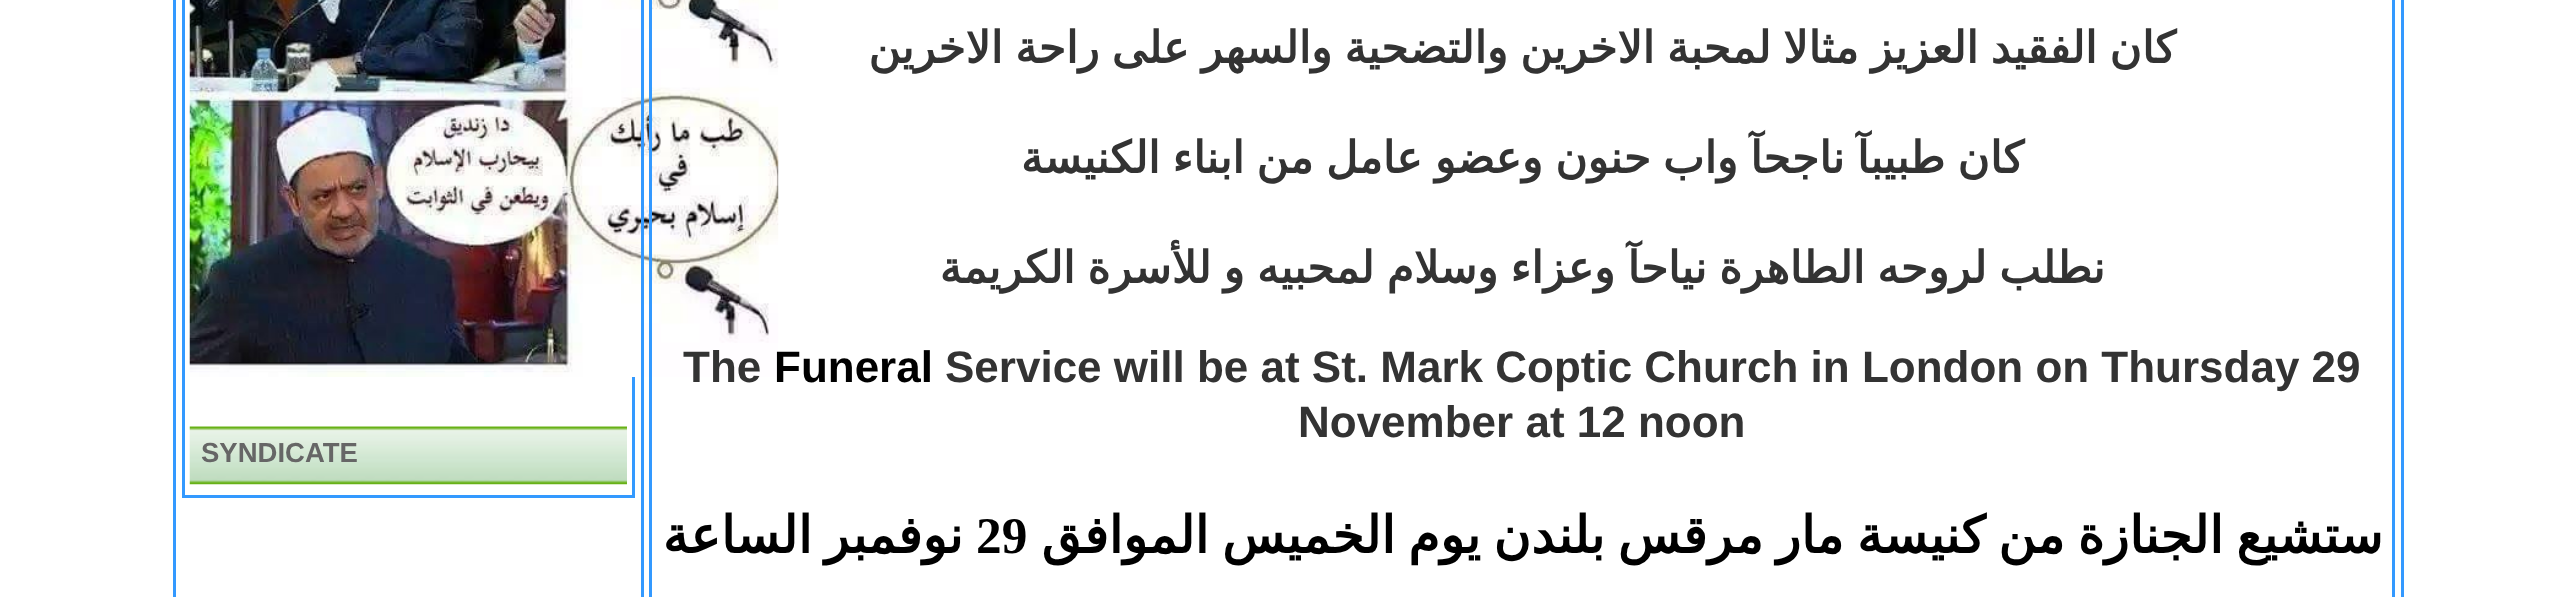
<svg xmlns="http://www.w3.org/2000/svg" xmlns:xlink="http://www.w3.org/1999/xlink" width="2566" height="597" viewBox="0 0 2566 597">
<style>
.cls-1{font:bold 44px DejaVu Sans;direction:rtl;fill:#333333}
.cls-2{font:bold 44px Liberation Sans;fill:#333333}
.cls-3{font:bold 44px Liberation Sans;fill:#000000}
.cls-4{font:bold 51.3px DejaVu Sans;direction:rtl;fill:#000000}
.cls-5{font:bold 51.3px Liberation Serif;fill:#000000}
.cls-6{font:bold 27.5px Liberation Sans;fill:#666666}
</style>
<rect width="100%" height="100%" fill="#ffffff"/>
<rect fill="none" stroke="#3399ff" stroke-width="3" x="174.5" y="-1.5" width="2219" height="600"/>
<rect fill="none" stroke="#3399ff" stroke-width="3" x="183.5" y="-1.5" width="450" height="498"/>
<image xlink:href="image0.png" x="189" y="0" width="590" height="377"/>
<rect fill="none" stroke="#3399ff" stroke-width="3" x="642.5" y="-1.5" width="1760" height="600"/>
<rect fill="none" stroke="#3399ff" stroke-width="3" x="650.5" y="-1.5" width="1743" height="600"/>
<image xlink:href="image1.png" x="189" y="426" width="438" height="59"/>
<text class="cls-1" x="2176" y="63" word-spacing="-1.75">كان الفقيد العزيز مثالا لمحبة الاخرين والتضحية والسهر على راحة الاخرين</text>
<text class="cls-1" x="2024" y="173" word-spacing="-1.75">كان طبيبآ ناجحآ واب حنون وعضو عامل من ابناء الكنيسة</text>
<text class="cls-1" x="2105" y="283" word-spacing="-1.75">نطلب لروحه الطاهرة نياحآ وعزاء وسلام لمحبيه و للأسرة الكريمة</text>
<text class="cls-2" x="945" y="382">Service will be at St. Mark Coptic Church in London on Thursday 29</text>
<text class="cls-3" x="774" y="382">Funeral</text>
<text class="cls-2" x="683" y="382">The</text>
<text class="cls-2" x="1298" y="437">November at 12 noon</text>
<text class="cls-4" x="2383" y="553" word-spacing="-3.5">ستشيع الجنازة من كنيسة مار مرقس بلندن يوم الخميس الموافق</text>
<text class="cls-5" x="976" y="553">29</text>
<text class="cls-4" x="963" y="553">نوفمبر</text>
<text class="cls-4" x="812" y="553">الساعة</text>
<text class="cls-6" x="201" y="462">SYNDICATE</text>
</svg>
